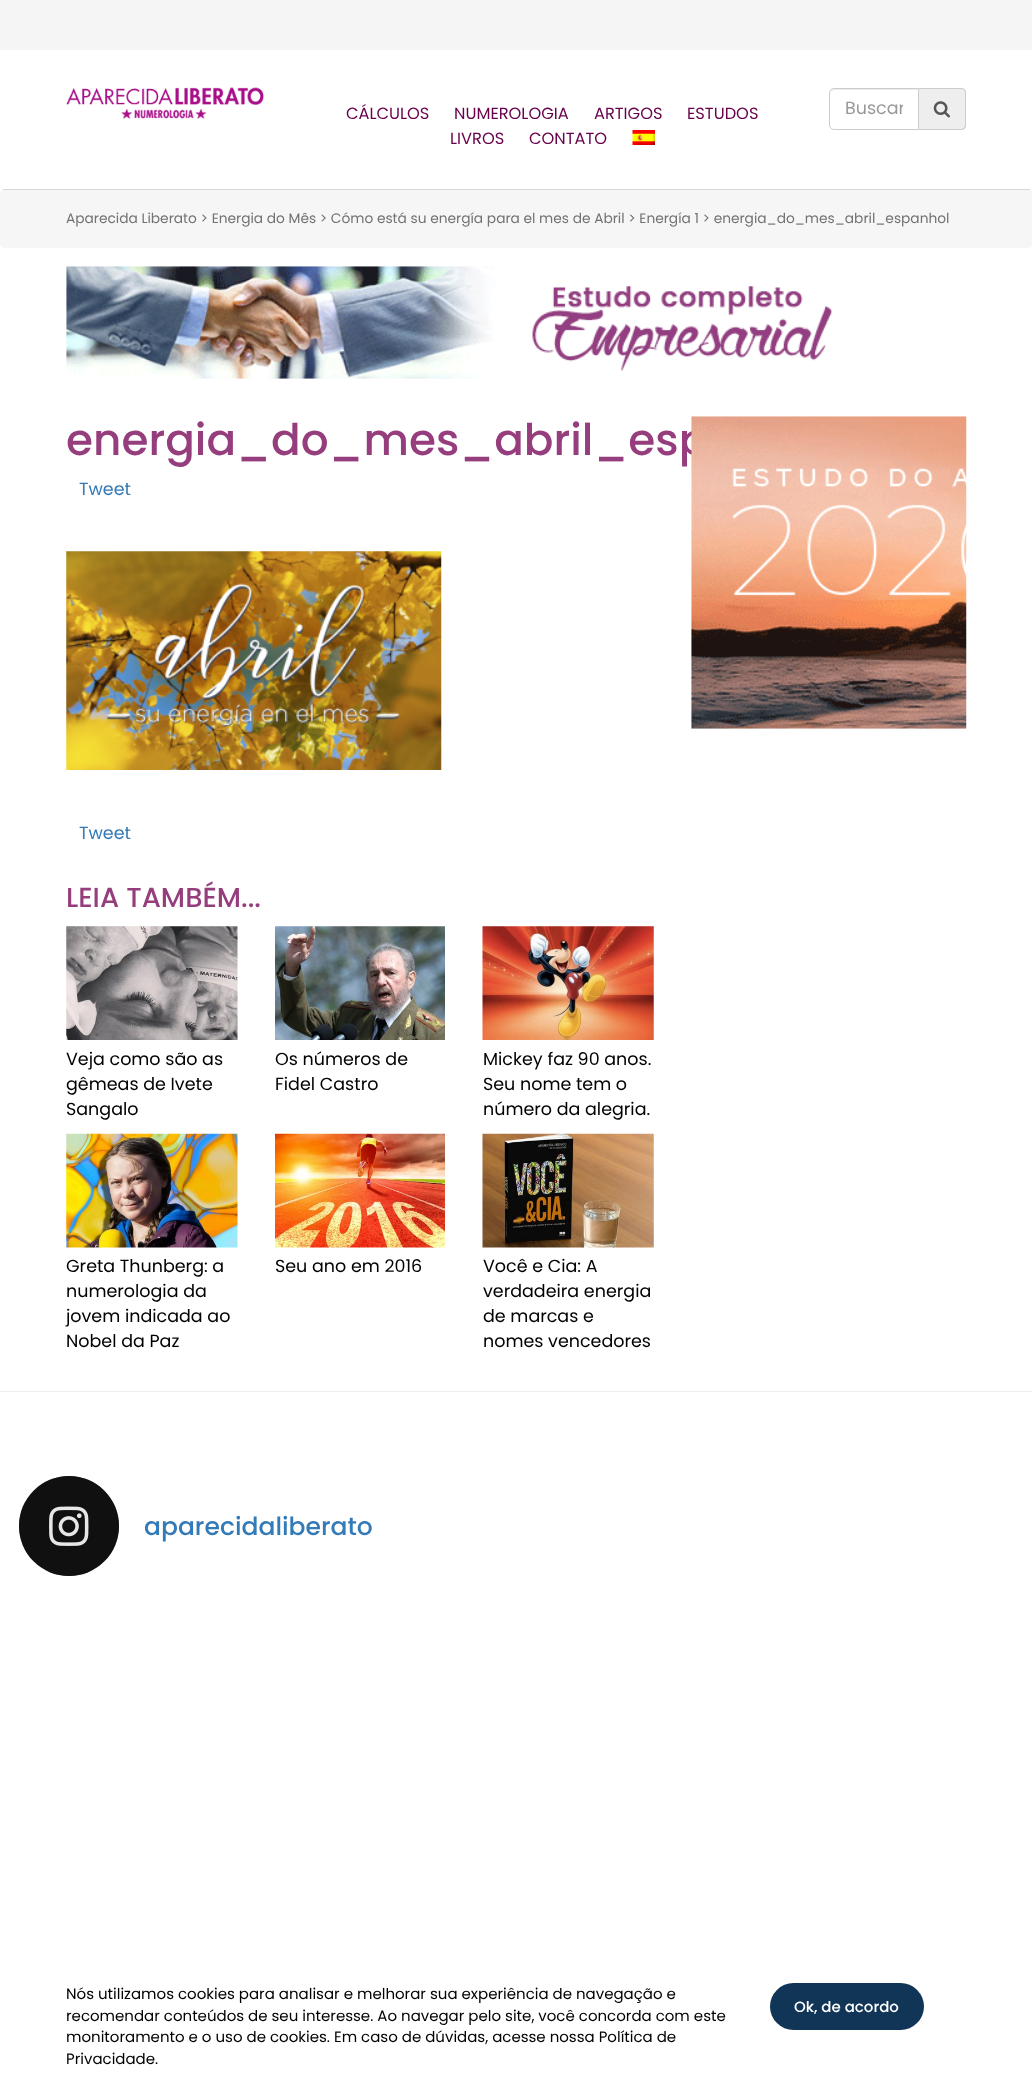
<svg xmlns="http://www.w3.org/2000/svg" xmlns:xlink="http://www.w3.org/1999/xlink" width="1032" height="2081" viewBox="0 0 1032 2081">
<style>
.cls-1{font:16.25px Poppins;fill:#68024d}
.cls-2{font:17.5px Poppins;fill:#999999}
.cls-3{font:13.75px Poppins;fill:#727272}
.cls-4{font:500 43.75px Poppins;fill:#963e7d}
.cls-5{font:17.5px Poppins;fill:#337ab7}
.cls-6{font:500 27.5px Poppins;fill:#963e7d}
.cls-7{font:17.5px Poppins;fill:#000000}
.cls-8{font:500 25px Poppins;fill:#337ab7}
.cls-9{font:15px Poppins;fill:#000000}
.cls-10{font:500 15px Poppins;fill:#ffffff}
</style>
<defs>
<clipPath id="clip1"><rect x="845" y="96" width="58" height="27"/></clipPath>
</defs>
<rect width="100%" height="100%" fill="#ffffff"/>
<rect fill="#f5f5f5" x="0" y="0" width="1032" height="50"/>
<image xlink:href="image0.png" x="66" y="87" width="198" height="32"/>
<image xlink:href="image1.png" x="632" y="130" width="23" height="15"/>
<path fill="#ececec" d="M834 90H918V89H834C832 89 830 91 830 93V94C830 92 832 90 834 90Z"/>
<path fill="none" stroke="#cccccc" d="M834 88.5H918.5V129.5H834C831.5 129.5 829.5 127.5 829.5 125V93C829.5 90.5 831.5 88.5 834 88.5Z"/>
<path fill="#eeeeee" d="M919 88H961C964 88 966 90 966 93V125C966 128 964 130 961 130H919Z"/>
<path fill="#cccccc" fill-rule="evenodd" d="M919 88H961C964 88 966 90 966 92V125C966 128 964 130 961 130H919ZM919 89H961C963 89 965 90 965 92V125C965 127 963 129 961 129H919Z"/>
<image xlink:href="image2.png" x="933" y="101" width="17" height="17"/>
<rect fill="#f6f6f6" x="0" y="189" width="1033" height="59" rx="5"/>
<rect fill="#d7d7d7" x="3" y="189" width="1027" height="1"/>
<image xlink:href="image3.png" x="66" y="266" width="766" height="113"/>
<image xlink:href="image4.png" x="66" y="551" width="376" height="219"/>
<image xlink:href="image5.png" x="66" y="926" width="172" height="114"/>
<image xlink:href="image6.png" x="275" y="926" width="170" height="114"/>
<image xlink:href="image7.png" x="482" y="926" width="172" height="114"/>
<image xlink:href="image8.png" x="66" y="1133" width="172" height="115"/>
<image xlink:href="image9.png" x="275" y="1133" width="170" height="115"/>
<image xlink:href="image10.png" x="482" y="1133" width="172" height="115"/>
<rect fill="#eeeeee" x="0" y="1391" width="1032" height="1"/>
<circle fill="#333333" cx="69" cy="1526" r="50"/>
<circle fill="#000000" fill-opacity="0.68" cx="69" cy="1526" r="50"/>
<image xlink:href="image12.png" x="49" y="1506" width="40" height="40"/>
<rect fill="#103556" x="770" y="1983" width="154" height="47" rx="23.5"/>
<text class="cls-1" x="346" y="119">CÁLCULOS</text>
<text class="cls-1" x="454" y="119">NUMEROLOGIA</text>
<text class="cls-1" x="594" y="119">ARTIGOS</text>
<text class="cls-1" x="687" y="119">ESTUDOS</text>
<text class="cls-1" x="450" y="144">LIVROS</text>
<text class="cls-1" x="529" y="144">CONTATO</text>
<g clip-path="url(#clip1)">
<text class="cls-2" x="845" y="114">Buscar</text>
</g>
<text class="cls-3" x="66" y="223">Aparecida Liberato &gt; Energia do Mês &gt; Cómo está su energía para el mes de Abril &gt; Energía 1 &gt; energia_do_mes_abril_espanhol</text>
<text class="cls-4" x="66" y="455">energia_do_mes_abril_esp</text>
<text class="cls-5" x="79" y="495">Tweet</text>
<text class="cls-5" x="79" y="839">Tweet</text>
<text class="cls-6" x="66" y="907">LEIA TAMBÉM...</text>
<text class="cls-7"><tspan x="66" y="1065">Veja como são as</tspan><tspan x="66" y="1090">gêmeas de Ivete</tspan><tspan x="66" y="1115">Sangalo</tspan></text>
<text class="cls-7"><tspan x="275" y="1065">Os números de</tspan><tspan x="275" y="1090">Fidel Castro</tspan></text>
<text class="cls-7"><tspan x="483" y="1065">Mickey faz 90 anos.</tspan><tspan x="483" y="1090">Seu nome tem o</tspan><tspan x="483" y="1115">número da alegria.</tspan></text>
<text class="cls-7"><tspan x="66" y="1272">Greta Thunberg: a</tspan><tspan x="66" y="1297">numerologia da</tspan><tspan x="66" y="1322">jovem indicada ao</tspan><tspan x="66" y="1347">Nobel da Paz</tspan></text>
<text class="cls-7" x="275" y="1272">Seu ano em 2016</text>
<text class="cls-7"><tspan x="483" y="1272">Você e Cia: A</tspan><tspan x="483" y="1297">verdadeira energia</tspan><tspan x="483" y="1322">de marcas e</tspan><tspan x="483" y="1347">nomes vencedores</tspan></text>
<image xlink:href="image11.png" x="691" y="416" width="276" height="313"/>
<text class="cls-8" x="144" y="1535">aparecidaliberato</text>
<text class="cls-9"><tspan x="66" y="1999">Nós utilizamos cookies para analisar e melhorar sua experiência de navegação e</tspan><tspan x="66" y="2021">recomendar conteúdos de seu interesse. Ao navegar pelo site, você concorda com este</tspan><tspan x="66" y="2042">monitoramento e o uso de cookies. Em caso de dúvidas, acesse nossa Política de</tspan><tspan x="66" y="2064">Privacidade.</tspan></text>
<text class="cls-10" x="794" y="2012">Ok, de acordo</text>
</svg>
